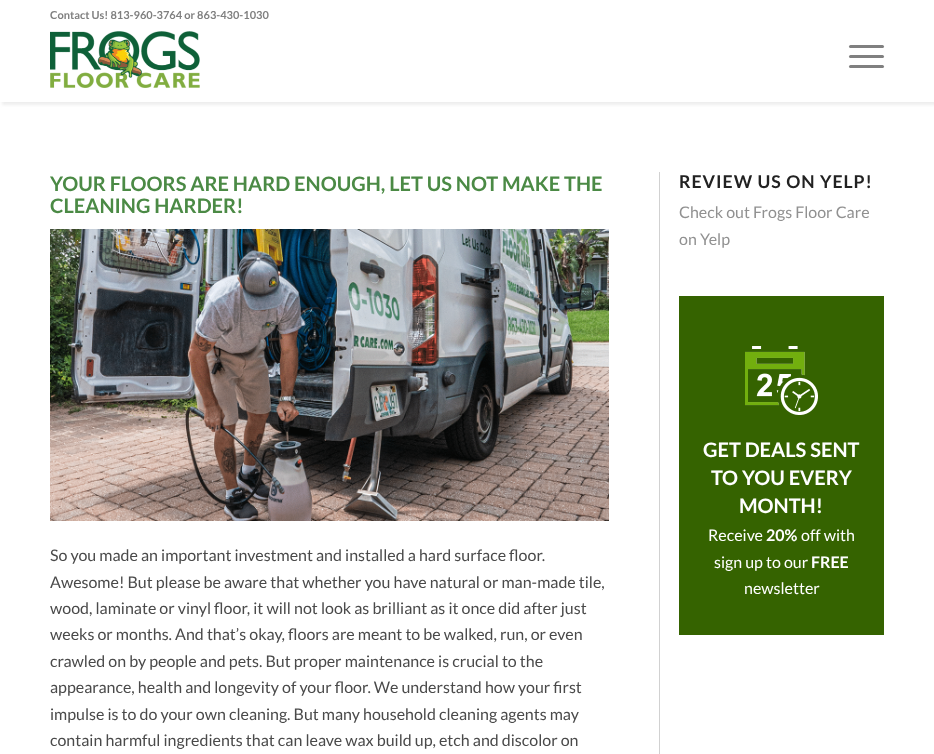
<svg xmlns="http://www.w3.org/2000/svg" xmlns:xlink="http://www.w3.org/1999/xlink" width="934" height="754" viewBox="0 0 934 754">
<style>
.cls-1{font:bold 11px Lato;fill:#808080}
.cls-2{font:bold 20px Lato;fill:#4b8a45}
.cls-3{font:16px Lato;fill:#4a4a4a}
.cls-4{font:bold 17.6px Lato;letter-spacing:1px;fill:#222222}
.cls-5{font:16px Lato;fill:#919191}
.cls-6{font:bold 20px Lato;fill:#ffffff}
.cls-7{font:16px Lato;fill:#ffffff}
.cls-8{font:bold 16px Lato;fill:#ffffff}
</style>
<defs>
<clipPath id="clip1"><rect x="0" y="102" width="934" height="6"/></clipPath>
</defs>
<rect width="100%" height="100%" fill="#ffffff"/>
<g clip-path="url(#clip1)">
<rect fill="#eeeeee" filter="blur(1.5px)" x="2" y="3" width="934" height="102"/>
</g>
<image xlink:href="image0.png" x="50" y="31" width="150" height="57"/>
<rect fill="#808080" x="849" y="55" width="35" height="3" rx="1.5"/>
<rect fill="#808080" x="849" y="45" width="35" height="3" rx="1.5"/>
<rect fill="#808080" x="849" y="65" width="35" height="3" rx="1.5"/>
<rect fill="#d1d1d1" x="659" y="172" width="1" height="582"/>
<image xlink:href="image1.png" x="50" y="229" width="559" height="292"/>
<rect fill="#356300" x="679" y="296" width="205" height="339"/>
<image xlink:href="image2.png" x="745" y="346" width="73" height="69"/>
<text class="cls-1" x="50" y="19">Contact Us! 813-960-3764 or 863-430-1030</text>
<text class="cls-2"><tspan x="50" y="191">YOUR FLOORS ARE HARD ENOUGH, LET US NOT MAKE THE</tspan><tspan x="50" y="213">CLEANING HARDER!</tspan></text>
<text class="cls-3"><tspan x="50" y="561">So you made an important investment and installed a hard surface floor.</tspan><tspan x="50" y="588">Awesome! But please be aware that whether you have natural or man-made tile,</tspan><tspan x="50" y="614">wood, laminate or vinyl floor, it will not look as brilliant as it once did after just</tspan><tspan x="50" y="640">weeks or months. And that’s okay, floors are meant to be walked, run, or even</tspan><tspan x="50" y="667">crawled on by people and pets. But proper maintenance is crucial to the</tspan><tspan x="50" y="693">appearance, health and longevity of your floor. We understand how your first</tspan><tspan x="50" y="720">impulse is to do your own cleaning. But many household cleaning agents may</tspan><tspan x="50" y="746">contain harmful ingredients that can leave wax build up, etch and discolor on</tspan></text>
<text class="cls-4" x="679" y="188">REVIEW US ON YELP!</text>
<text class="cls-5"><tspan x="679" y="218">Check out Frogs Floor Care</tspan><tspan x="679" y="245">on Yelp</tspan></text>
<text class="cls-6" x="703" y="457">GET DEALS SENT</text>
<text class="cls-6" x="711" y="485">TO YOU EVERY</text>
<text class="cls-6" x="739" y="513">MONTH!</text>
<text class="cls-7" x="708" y="541">Receive</text>
<text class="cls-8" x="766" y="541">20%</text>
<text class="cls-7" x="801" y="541">off with</text>
<text class="cls-7" x="714" y="568">sign up to our</text>
<text class="cls-8" x="811" y="568">FREE</text>
<text class="cls-7" x="744" y="594">newsletter</text>
</svg>
